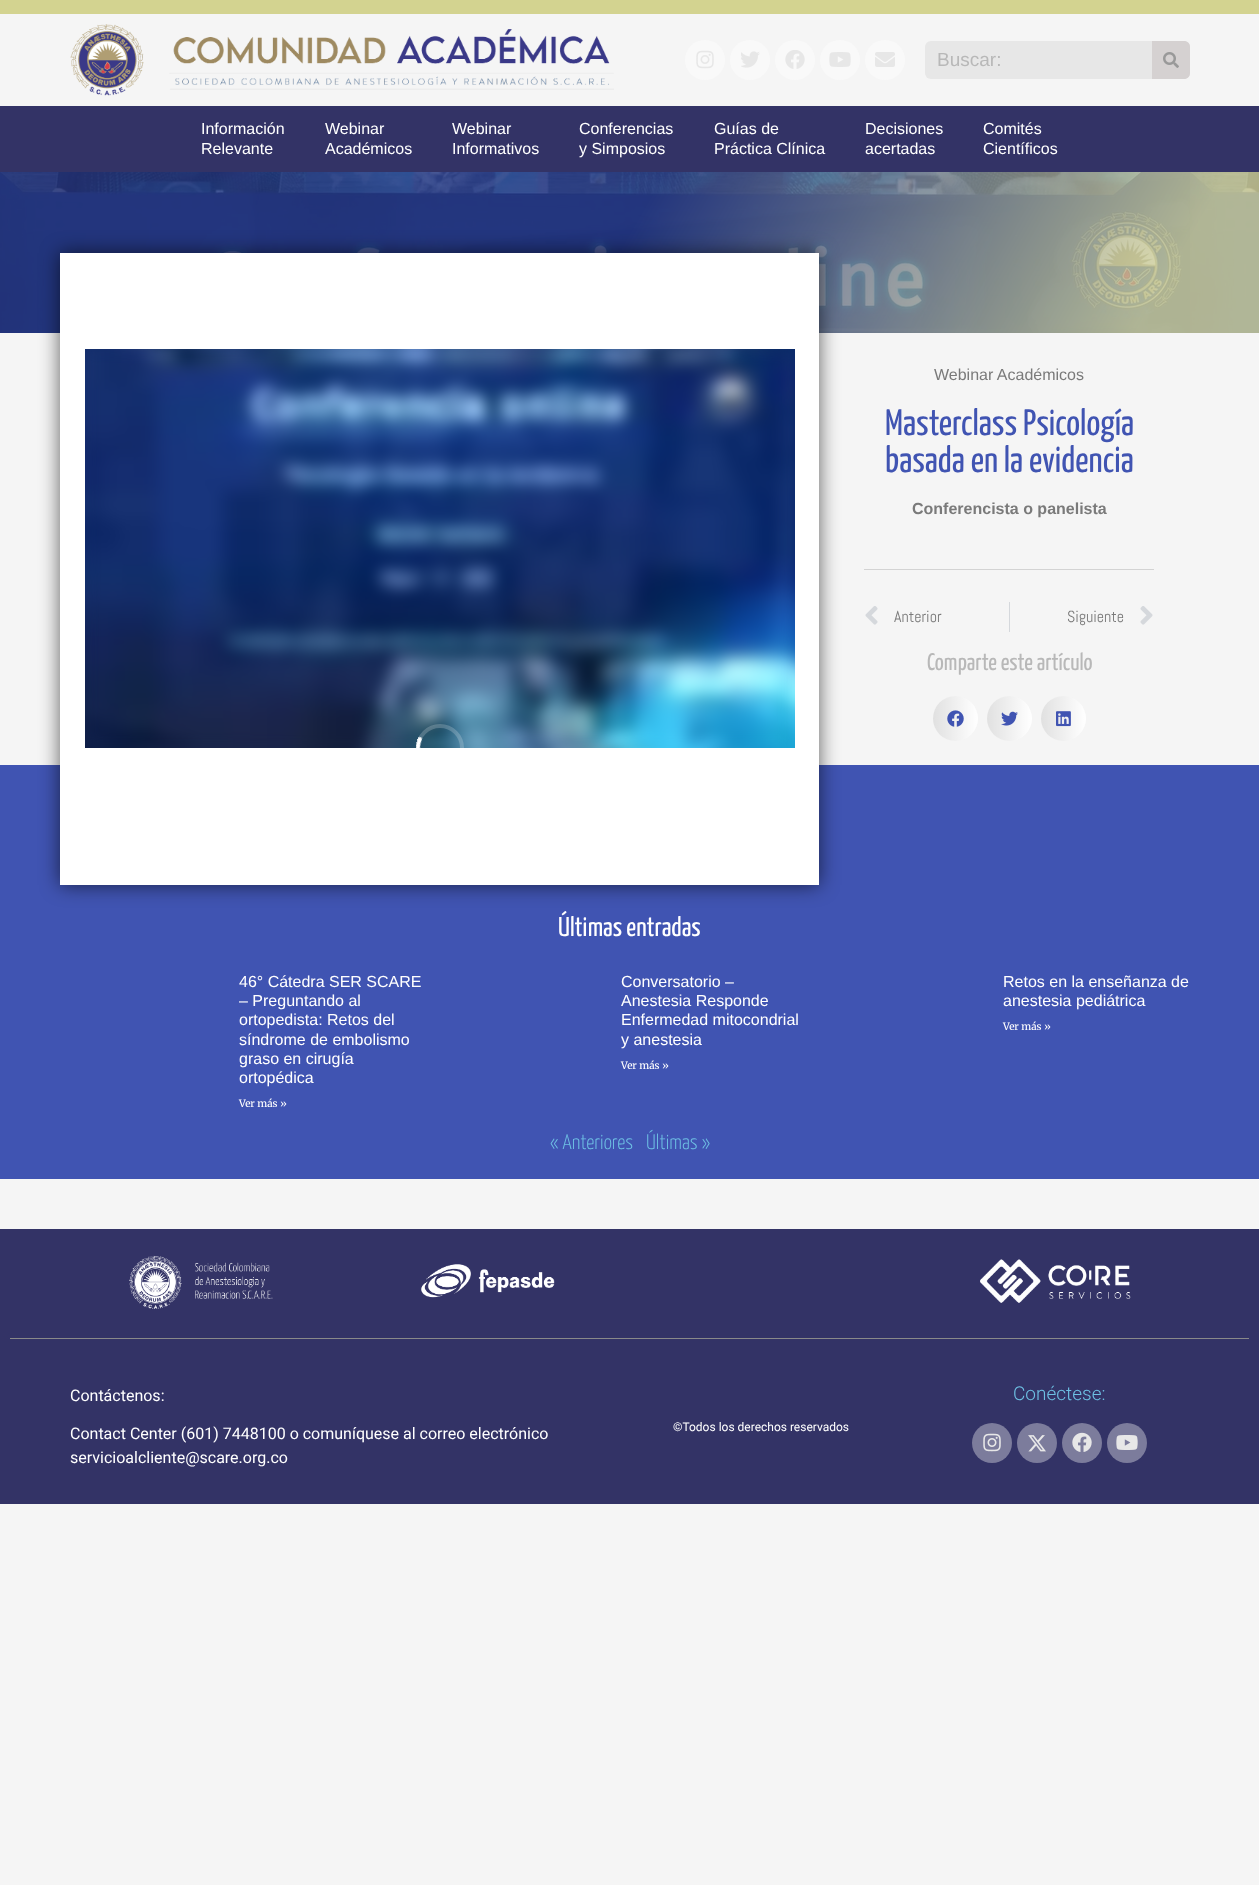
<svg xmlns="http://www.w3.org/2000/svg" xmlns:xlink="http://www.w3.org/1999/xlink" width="1259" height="1885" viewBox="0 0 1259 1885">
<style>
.cls-1{font:19px Liberation Sans;fill:#b8b8b8}
.cls-2{font:16px Liberation Sans;fill:#ffffff}
.cls-3{font:16px Liberation Sans;fill:#7a7a7a}
.cls-4{font:36.75px Yanone Kaffeesatz;fill:#4054b2}
.cls-5{font:bold 16px Liberation Sans;fill:#7a7a7a}
.cls-6{font:16px Abel;fill:#7a7a7a}
.cls-7{font:24px Yanone Kaffeesatz;fill:#b8b8b8}
.cls-8{font:27.25px Yanone Kaffeesatz;fill:#ffffff}
.cls-9{font:500 10px Merriweather;fill:#ffffff}
.cls-10{font:300 21px Yanone Kaffeesatz;fill:#6ec1e4}
.cls-11{font:16px Roboto;fill:#ffffff}
.cls-12{font:12px Roboto;fill:#ffffff}
.cls-13{font:300 19px Roboto;fill:#6ec1e4}
</style>
<defs>
<linearGradient id="g1" gradientUnits="userSpaceOnUse" x1="933" y1="719" x2="978" y2="719"><stop offset="0" stop-color="#000000" stop-opacity="0.12"/><stop offset="1" stop-color="#000000" stop-opacity="0"/></linearGradient>
<linearGradient id="g2" gradientUnits="userSpaceOnUse" x1="987" y1="719" x2="1032" y2="719"><stop offset="0" stop-color="#000000" stop-opacity="0.12"/><stop offset="1" stop-color="#000000" stop-opacity="0"/></linearGradient>
<linearGradient id="g3" gradientUnits="userSpaceOnUse" x1="1041" y1="719" x2="1086" y2="719"><stop offset="0" stop-color="#000000" stop-opacity="0.12"/><stop offset="1" stop-color="#000000" stop-opacity="0"/></linearGradient>
</defs>
<rect width="100%" height="100%" fill="#f5f5f5"/>
<rect fill="#d3d390" x="0" y="0" width="1259" height="14"/>
<image xlink:href="image0.png" x="70" y="24" width="544" height="72"/>
<circle fill="#f9f9f9" cx="705" cy="60" r="20"/>
<image xlink:href="image1.png" x="696" y="50" width="18" height="19"/>
<circle fill="#f9f9f9" cx="750" cy="60" r="20"/>
<image xlink:href="image2.png" x="741" y="51" width="19" height="17"/>
<circle fill="#f9f9f9" cx="795" cy="60" r="20"/>
<image xlink:href="image3.png" x="785" y="50" width="20" height="19"/>
<circle fill="#f9f9f9" cx="840" cy="60" r="20"/>
<image xlink:href="image4.png" x="829" y="52" width="22" height="15"/>
<circle fill="#f9f9f9" cx="885" cy="60" r="20"/>
<image xlink:href="image5.png" x="875" y="52" width="20" height="15"/>
<rect fill="#e7e7e7" x="925" y="41" width="265" height="38" rx="6"/>
<path fill="#d5d1d1" d="M1152 41H1184C1187.5 41 1190 43.5 1190 47V73C1190 76.5 1187.5 79 1184 79H1152Z"/>
<image xlink:href="image6.png" x="1163" y="52" width="16" height="16"/>
<rect fill="#333366" x="0" y="106" width="1259" height="66"/>
<image xlink:href="image7.png" x="0" y="172" width="1259" height="161"/>
<rect fill="#4054b2" x="0" y="765" width="1259" height="414"/>
<rect fill="#000000" fill-opacity="0.61" filter="blur(10px)" x="60" y="253" width="759" height="632"/>
<rect fill="#ffffff" x="60" y="253" width="759" height="632"/>
<image xlink:href="image8.png" x="85" y="349" width="710" height="399"/>
<rect fill="#d3d3d3" x="864" y="569" width="290" height="1"/>
<image xlink:href="image9.png" x="865" y="606" width="13" height="19"/>
<rect fill="#d5d8dc" x="1009" y="602" width="1" height="30"/>
<image xlink:href="image10.png" x="1140" y="606" width="13" height="19"/>
<circle fill="#ffffff" cx="955.5" cy="718.5" r="22.5"/>
<circle fill="url(#g1)" cx="955.5" cy="718.5" r="22.5"/>
<image xlink:href="image11.png" x="947" y="710" width="17" height="17"/>
<circle fill="#ffffff" cx="1009.5" cy="718.5" r="22.5"/>
<circle fill="url(#g2)" cx="1009.5" cy="718.5" r="22.5"/>
<image xlink:href="image12.png" x="1001" y="711" width="17" height="15"/>
<circle fill="#ffffff" cx="1063.5" cy="718.5" r="22.5"/>
<circle fill="url(#g3)" cx="1063.5" cy="718.5" r="22.5"/>
<image xlink:href="image13.png" x="1056" y="711" width="15" height="16"/>
<rect fill="#333366" x="0" y="1229" width="1259" height="275"/>
<image xlink:href="image14.png" x="129" y="1255" width="144" height="54"/>
<image xlink:href="image15.png" x="421" y="1264" width="134" height="34"/>
<image xlink:href="image16.png" x="980" y="1259" width="151" height="44"/>
<rect fill="#898989" x="10" y="1338" width="1239" height="1"/>
<circle fill="#7c7c9c" cx="992" cy="1443" r="20"/>
<image xlink:href="image17.png" x="983" y="1433" width="18" height="19"/>
<circle fill="#7c7c9c" cx="1037" cy="1443" r="20"/>
<image xlink:href="image18.png" x="1028" y="1435" width="18" height="17"/>
<circle fill="#7c7c9c" cx="1082" cy="1443" r="20"/>
<image xlink:href="image19.png" x="1072" y="1432" width="20" height="20"/>
<circle fill="#7c7c9c" cx="1127" cy="1443" r="20"/>
<image xlink:href="image20.png" x="1116" y="1435" width="22" height="15"/>
<text class="cls-1" x="937" y="66">Buscar:</text>
<text class="cls-2"><tspan x="201" y="134">Información</tspan><tspan x="201" y="154">Relevante</tspan></text>
<text class="cls-2"><tspan x="325" y="134">Webinar</tspan><tspan x="325" y="154">Académicos</tspan></text>
<text class="cls-2"><tspan x="452" y="134">Webinar</tspan><tspan x="452" y="154">Informativos</tspan></text>
<text class="cls-2"><tspan x="579" y="134">Conferencias</tspan><tspan x="579" y="154">y Simposios</tspan></text>
<text class="cls-2"><tspan x="714" y="134">Guías de</tspan><tspan x="714" y="154">Práctica Clínica</tspan></text>
<text class="cls-2"><tspan x="865" y="134">Decisiones</tspan><tspan x="865" y="154">acertadas</tspan></text>
<text class="cls-2"><tspan x="983" y="134">Comités</tspan><tspan x="983" y="154">Científicos</tspan></text>
<text class="cls-3" x="934" y="380">Webinar Académicos</text>
<text class="cls-4"><tspan x="885" y="435">Masterclass Psicología</tspan><tspan x="885" y="472">basada en la evidencia</tspan></text>
<text class="cls-5" x="912" y="514">Conferencista o panelista</text>
<text class="cls-6" x="894" y="622">Anterior</text>
<text class="cls-6" x="1067" y="622">Siguiente</text>
<text class="cls-7" x="927" y="670">Comparte este artículo</text>
<text class="cls-8" x="558" y="936">Últimas entradas</text>
<text class="cls-2"><tspan x="239" y="987">46° Cátedra SER SCARE</tspan><tspan x="239" y="1006">– Preguntando al</tspan><tspan x="239" y="1025">ortopedista: Retos del</tspan><tspan x="239" y="1045">síndrome de embolismo</tspan><tspan x="239" y="1064">graso en cirugía</tspan><tspan x="239" y="1083">ortopédica</tspan></text>
<text class="cls-9" x="239" y="1107">Ver más »</text>
<text class="cls-2"><tspan x="621" y="987">Conversatorio –</tspan><tspan x="621" y="1006">Anestesia Responde</tspan><tspan x="621" y="1025">Enfermedad mitocondrial</tspan><tspan x="621" y="1045">y anestesia</tspan></text>
<text class="cls-9" x="621" y="1069">Ver más »</text>
<text class="cls-2"><tspan x="1003" y="987">Retos en la enseñanza de</tspan><tspan x="1003" y="1006">anestesia pediátrica</tspan></text>
<text class="cls-9" x="1003" y="1030">Ver más »</text>
<text class="cls-10" x="550" y="1149">« Anteriores</text>
<text class="cls-10" x="646" y="1149">Últimas »</text>
<text class="cls-11" x="70" y="1401">Contáctenos:</text>
<text class="cls-11"><tspan x="70" y="1439">Contact Center (601) 7448100 o comuníquese al correo electrónico</tspan><tspan x="70" y="1463">servicioalcliente@scare.org.co</tspan></text>
<text class="cls-12" x="673" y="1431">©Todos los derechos reservados</text>
<text class="cls-13" x="1013" y="1400">Conéctese:</text>
</svg>
